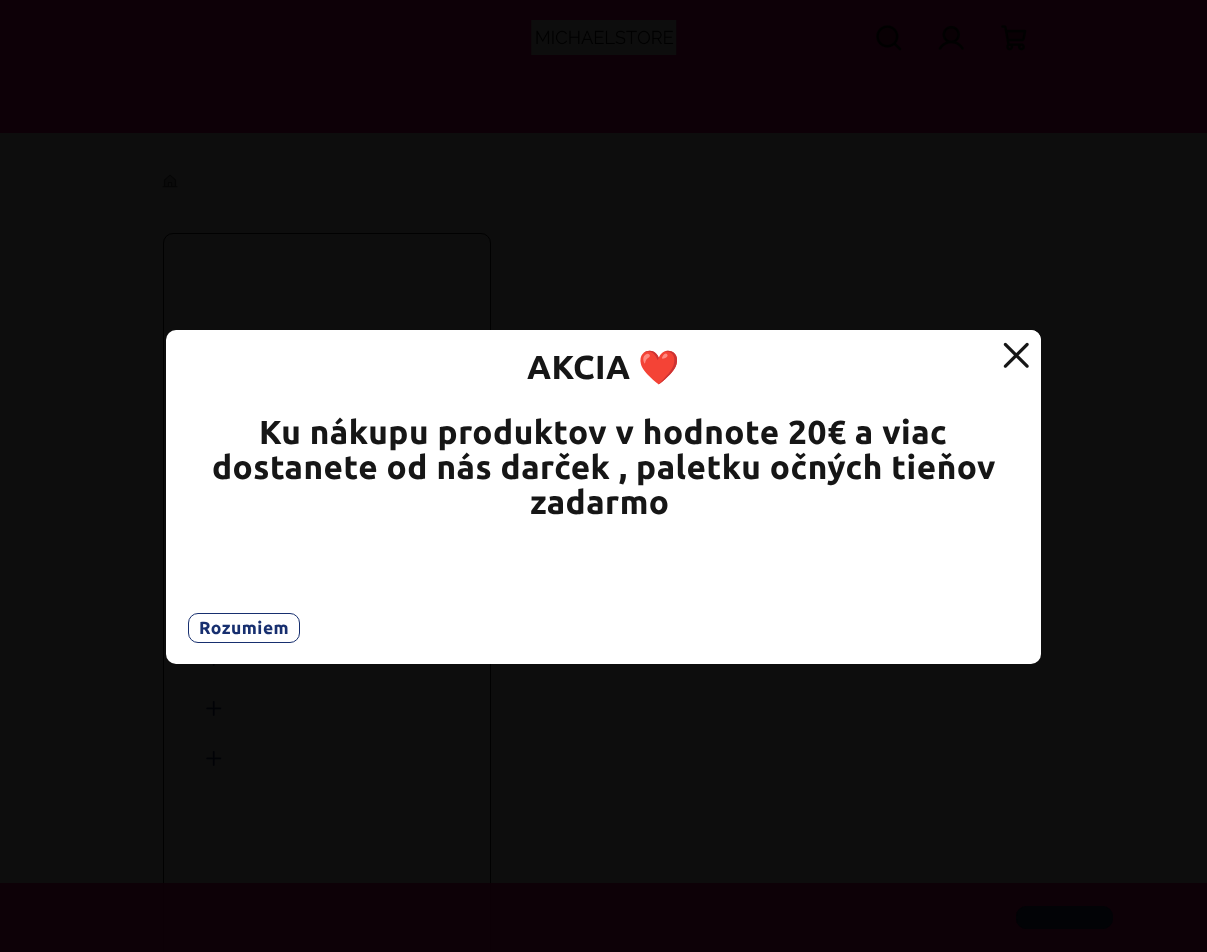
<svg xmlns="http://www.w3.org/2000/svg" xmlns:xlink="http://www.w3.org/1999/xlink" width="1207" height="952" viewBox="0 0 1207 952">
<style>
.cls-1{font:bold 33.3px Ubuntu;letter-spacing:0.5px;fill:#161616}
.cls-2{font:bold 33.3px Noto Color Emoji;letter-spacing:0.5px;fill:#161616}
.cls-3{font:bold 17.5px Ubuntu;letter-spacing:0.5px;fill:#172f6f}
</style>
<rect width="100%" height="100%" fill="#0d0d0d"/>
<rect fill="#0d0007" x="0" y="0" width="1207" height="133"/>
<image xlink:href="image0.png" x="531" y="20" width="146" height="35"/>
<image xlink:href="image1.png" x="876" y="25" width="26" height="26"/>
<path fill="#010101" fill-opacity="0.3" d="M887.5 46.5C900.5 46.5 900.5 26.5 887.5 26.5C874.5 26.5 874.5 46.5 887.5 46.5Z"/>
<image xlink:href="image2.png" x="938" y="25" width="26" height="25"/>
<image xlink:href="image3.png" x="945" y="28" width="13" height="13"/>
<image xlink:href="image4.png" x="1001" y="25" width="26" height="26"/>
<rect fill="#010101" fill-opacity="0.3" x="1007" y="32" width="17" height="7"/>
<image xlink:href="image5.png" x="162" y="174" width="16" height="14"/>
<image xlink:href="image6.png" x="164" y="175" width="12" height="12"/>
<rect fill="none" stroke="#010101" x="163.5" y="233.5" width="327" height="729" rx="9.5"/>
<image xlink:href="image7.png" x="212" y="664" width="3" height="2"/>
<image xlink:href="image8.png" x="206" y="701" width="16" height="15"/>
<image xlink:href="image8.png" x="206" y="751" width="16" height="15"/>
<rect fill="#ffffff" x="166" y="330" width="875" height="334" rx="10"/>
<rect fill="none" stroke="#172f6f" x="188.5" y="613.5" width="111" height="29" rx="9.5"/>
<rect fill="#ffffff" x="991" y="330" width="50" height="50" rx="10"/>
<image xlink:href="image9.png" x="1003" y="342" width="26" height="26"/>
<rect fill="#0d0007" fill-opacity="0.9" x="0" y="883" width="1207" height="69"/>
<rect fill="#020306" stroke="#020306" x="1016.5" y="906.5" width="96" height="22" rx="9.5"/>
<text class="cls-1" x="527" y="379">AKCIA</text>
<text class="cls-2" x="638" y="379">❤️</text>
<text class="cls-1" x="259" y="444">Ku nákupu produktov v hodnote 20€ a viac</text>
<text class="cls-1" x="212" y="479">dostanete od nás darček , paletku očných tieňov</text>
<text class="cls-1" x="530" y="514">zadarmo</text>
<text class="cls-3" x="199" y="634">Rozumiem</text>
</svg>
